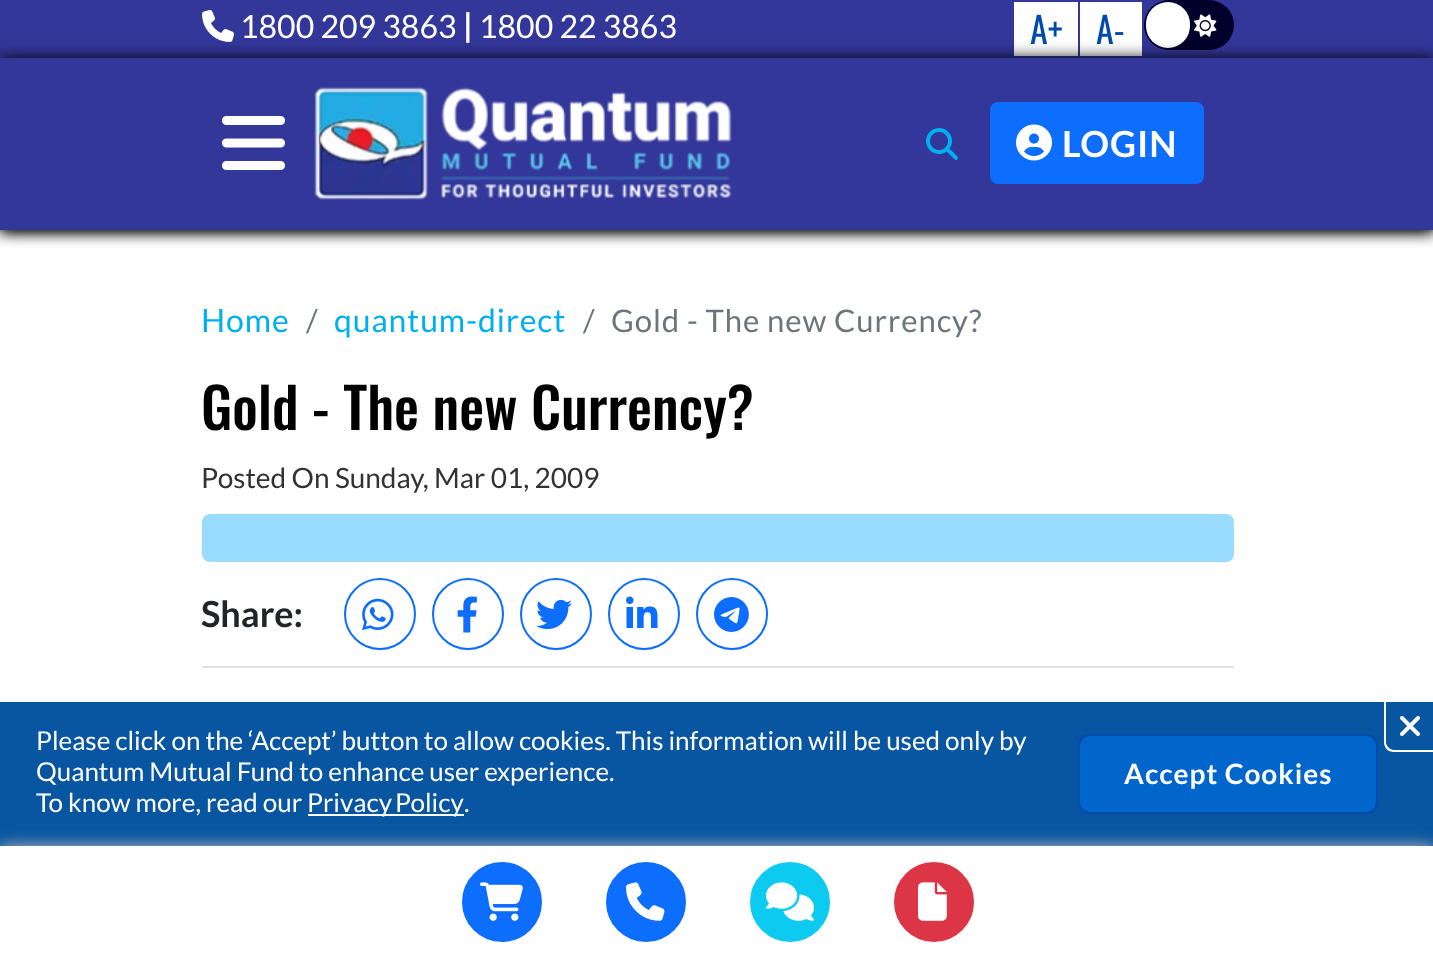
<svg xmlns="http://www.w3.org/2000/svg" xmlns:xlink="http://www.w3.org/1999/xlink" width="1433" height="955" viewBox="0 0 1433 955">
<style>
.cls-1{font:32px Lato;fill:#ffffff}
.cls-2{font:32px Oswald;fill:#ffffff}
.cls-3{font:36px Oswald;fill:#004aad}
.cls-4{font:bold 36px Lato;letter-spacing:1px;fill:#ffffff}
.cls-5{font:32px Lato;letter-spacing:0.9px;fill:#00afef}
.cls-6{font:31.1px Lato;letter-spacing:0.9px;fill:#6c757d}
.cls-7{font:500 56px Oswald;fill:#000000}
.cls-8{font:28px Lato;fill:#333232}
.cls-9{font:bold 36px Lato;fill:#212529}
.cls-10{font:26px Lato;fill:#ffffff}
.cls-11{font:bold 28px Lato;letter-spacing:1px;fill:#ffffff}
</style>
<rect width="100%" height="100%" fill="#ffffff"/>
<rect fill="#000000" filter="blur(8px)" x="0" y="0" width="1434" height="230"/>
<rect fill="#33379a" x="0" y="0" width="1433" height="58"/>
<image xlink:href="image0.png" x="202" y="10" width="32" height="32"/>
<rect fill="#ffffff" x="1014" y="2" width="64" height="54"/>
<rect fill="#ffffff" x="1080" y="2" width="62" height="54"/>
<rect fill="#00002b" x="1144" y="0" width="90" height="50" rx="25"/>
<rect fill="#ffffff" x="1146" y="2" width="44" height="46" rx="22"/>
<image xlink:href="image1.png" x="1194" y="14" width="23" height="23"/>
<rect fill="#000000" filter="blur(8px)" x="0" y="58" width="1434" height="172"/>
<rect fill="#33379a" x="0" y="58" width="1433" height="172"/>
<image xlink:href="image2.png" x="222" y="116" width="63" height="54"/>
<image xlink:href="image3.png" x="314" y="87" width="418" height="113"/>
<image xlink:href="image4.png" x="926" y="128" width="32" height="32"/>
<rect fill="#0d6efd" stroke="#0d6efd" stroke-width="2" x="991" y="103" width="212" height="80" rx="7"/>
<image xlink:href="image5.png" x="1016" y="124" width="36" height="37"/>
<rect fill="#9adcff" x="202" y="514" width="1032" height="48" rx="8"/>
<rect fill="#dee2e6" x="202" y="666" width="1032" height="2"/>
<circle fill="none" stroke="#0d6efd" stroke-width="2" cx="380" cy="614" r="35"/>
<image xlink:href="image6.png" x="362" y="598" width="32" height="33"/>
<circle fill="none" stroke="#0d6efd" stroke-width="2" cx="468" cy="614" r="35"/>
<image xlink:href="image7.png" x="457" y="596" width="20" height="37"/>
<circle fill="none" stroke="#0d6efd" stroke-width="2" cx="556" cy="614" r="35"/>
<image xlink:href="image8.png" x="536" y="599" width="36" height="31"/>
<circle fill="none" stroke="#0d6efd" stroke-width="2" cx="644" cy="614" r="35"/>
<image xlink:href="image9.png" x="626" y="596" width="32" height="32"/>
<circle fill="none" stroke="#0d6efd" stroke-width="2" cx="732" cy="614" r="35"/>
<image xlink:href="image10.png" x="714" y="597" width="35" height="35"/>
<rect fill="#0855a1" x="0" y="702" width="1433" height="144"/>
<rect fill="#bbbbbb" filter="blur(8px)" x="0" y="846" width="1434" height="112"/>
<rect fill="#ffffff" x="0" y="846" width="1433" height="109"/>
<circle fill="#0d6efd" stroke="#0d6efd" stroke-width="2" cx="502" cy="902" r="39"/>
<image xlink:href="image11.png" x="480" y="882" width="43" height="39"/>
<circle fill="#0d6efd" stroke="#0d6efd" stroke-width="2" cx="646" cy="902" r="39"/>
<image xlink:href="image12.png" x="626" y="882" width="39" height="39"/>
<circle fill="#0dcaf0" stroke="#0dcaf0" stroke-width="2" cx="790" cy="902" r="39"/>
<image xlink:href="image13.png" x="766" y="882" width="48" height="39"/>
<circle fill="#dc3545" stroke="#dc3545" stroke-width="2" cx="934" cy="902" r="39"/>
<image xlink:href="image14.png" x="918" y="882" width="29" height="39"/>
<rect fill="#ffffff" x="308" y="814" width="156" height="2"/>
<rect fill="#0066cc" stroke="#004aad" stroke-width="2" x="1079" y="735" width="298" height="78" rx="11"/>
<path fill="#ffffff" fill-rule="evenodd" d="M1384 702H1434V752H1394C1388 752 1384 748 1384 742ZM1386 702H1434V750H1394C1390 750 1386 746 1386 742Z"/>
<image xlink:href="image15.png" x="1400" y="716" width="20" height="20"/>
<text class="cls-1" x="240" y="38">1800 209 3863</text>
<text class="cls-2" x="464" y="38">|</text>
<text class="cls-1" x="479" y="38">1800 22 3863</text>
<text class="cls-3" x="1030" y="44">A+</text>
<text class="cls-3" x="1096" y="44">A-</text>
<text class="cls-4" x="1062" y="157">LOGIN</text>
<text class="cls-5" x="201" y="332">Home</text>
<text class="cls-6" x="306" y="332">/</text>
<text class="cls-5" x="334" y="332">quantum-direct</text>
<text class="cls-6" x="583" y="332">/</text>
<text class="cls-6" x="611" y="332">Gold - The new Currency?</text>
<text class="cls-7" x="201" y="430">Gold - The new Currency?</text>
<text class="cls-8" x="201" y="488">Posted On Sunday, Mar 01, 2009</text>
<text class="cls-9" x="201" y="627">Share:</text>
<text class="cls-10"><tspan x="36" y="750">Please click on the ‘Accept’ button to allow cookies. This information will be used only by</tspan><tspan x="36" y="781">Quantum Mutual Fund to enhance user experience.</tspan><tspan x="36" y="812">To know more, read our</tspan></text>
<text class="cls-10" x="307" y="812" word-spacing="-2">Privacy Policy</text>
<text class="cls-10" x="464" y="812">.</text>
<text class="cls-11" x="1124" y="784">Accept Cookies</text>
</svg>
